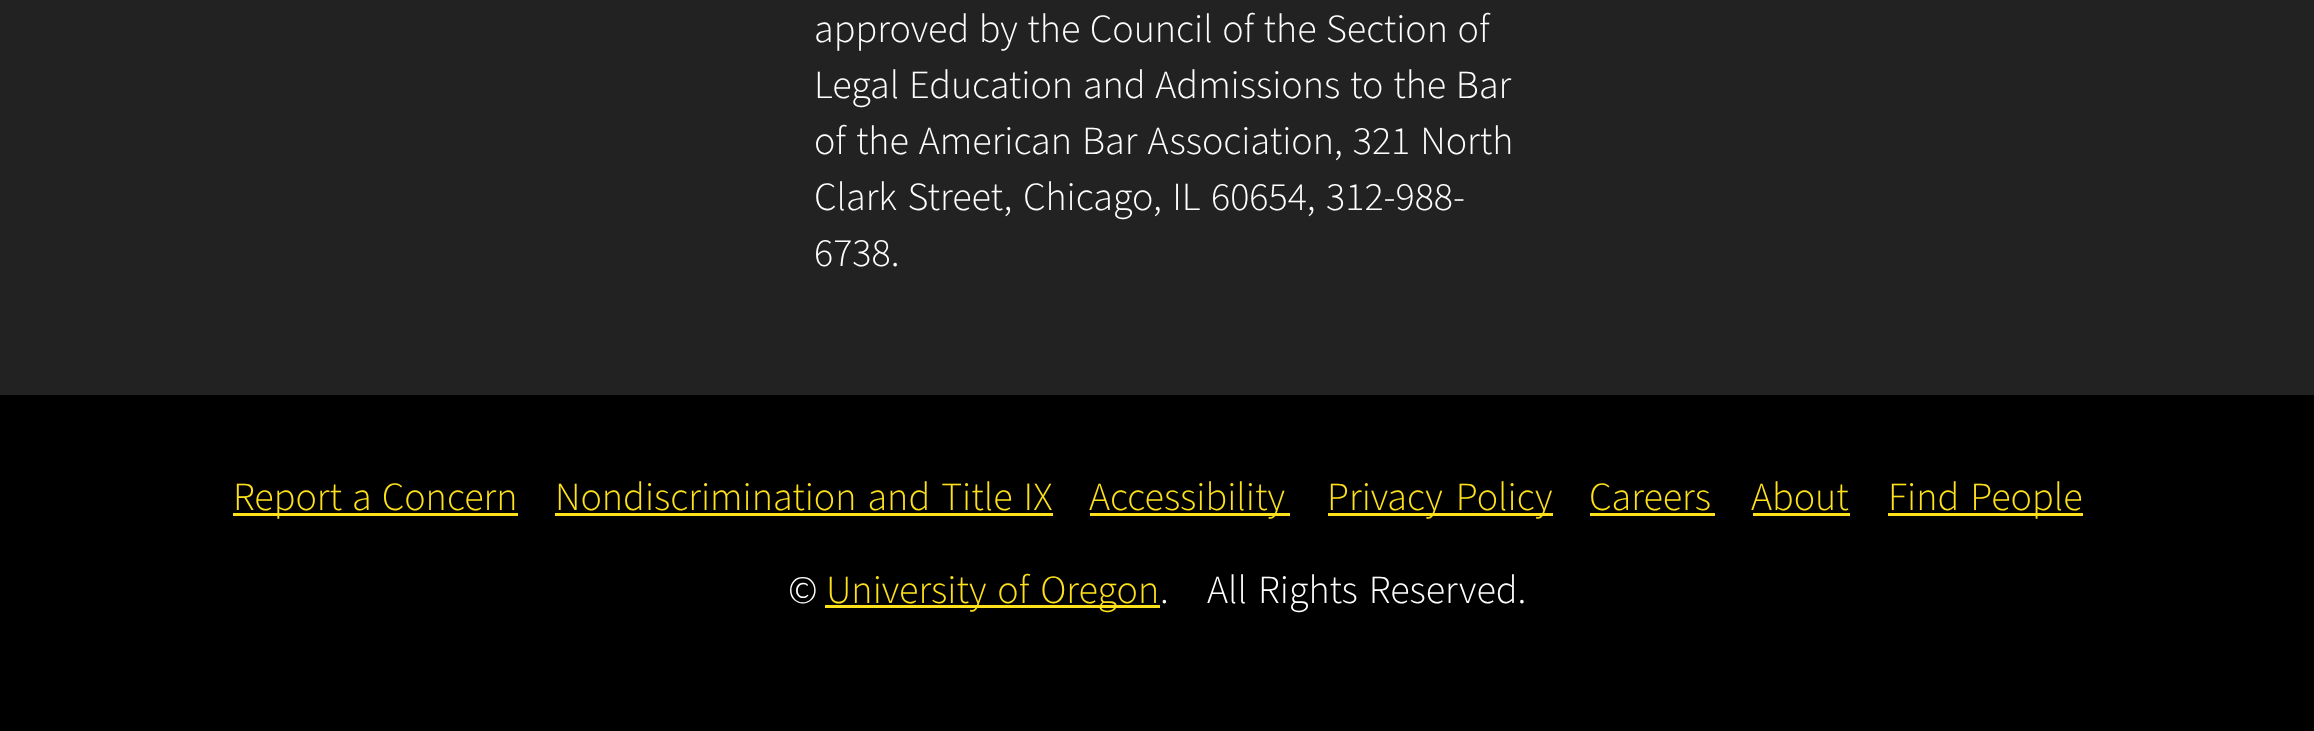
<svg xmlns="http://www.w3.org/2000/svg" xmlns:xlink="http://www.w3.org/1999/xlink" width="2314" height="731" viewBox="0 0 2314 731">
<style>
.cls-1{font:300 40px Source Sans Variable;fill:#ffffff}
.cls-2{font:300 40px Source Sans Variable;fill:#fee11a}
</style>
<rect width="100%" height="100%" fill="#000000"/>
<rect fill="#222222" x="0" y="0" width="2314" height="395"/>
<rect fill="#fee11a" x="233" y="513" width="285" height="3"/>
<rect fill="#fee11a" x="555" y="513" width="498" height="3"/>
<rect fill="#fee11a" x="1090" y="513" width="200" height="3"/>
<rect fill="#fee11a" x="1328" y="513" width="225" height="3"/>
<rect fill="#fee11a" x="1590" y="513" width="125" height="3"/>
<rect fill="#fee11a" x="1753" y="513" width="97" height="3"/>
<rect fill="#fee11a" x="1888" y="513" width="195" height="3"/>
<rect fill="#fee11a" x="825" y="605" width="335" height="3"/>
<text class="cls-1"><tspan x="814" y="42" word-spacing="1.5">approved by the Council of the Section of</tspan><tspan x="814" y="98" word-spacing="1.75">Legal Education and Admissions to the Bar</tspan><tspan x="814" y="154" word-spacing="2">of the American Bar Association, 321 North</tspan><tspan x="814" y="210" word-spacing="2.5">Clark Street, Chicago, IL 60654, 312-988-</tspan><tspan x="814" y="266">6738.</tspan></text>
<text class="cls-2" x="233" y="510" word-spacing="2">Report a Concern</text>
<text class="cls-2" x="555" y="510" word-spacing="3">Nondiscrimination and Title IX</text>
<text class="cls-2" x="1089" y="510">Accessibility</text>
<text class="cls-2" x="1327" y="510" word-spacing="5">Privacy Policy</text>
<text class="cls-2" x="1589" y="510">Careers</text>
<text class="cls-2" x="1751" y="510">About</text>
<text class="cls-2" x="1888" y="510" word-spacing="3">Find People</text>
<text class="cls-1" x="788" y="603">©</text>
<text class="cls-2" x="826" y="603" word-spacing="3">University of Oregon</text>
<text class="cls-1" x="1160" y="603">.</text>
<text class="cls-1" x="1207" y="603" word-spacing="3">All Rights Reserved.</text>
</svg>
